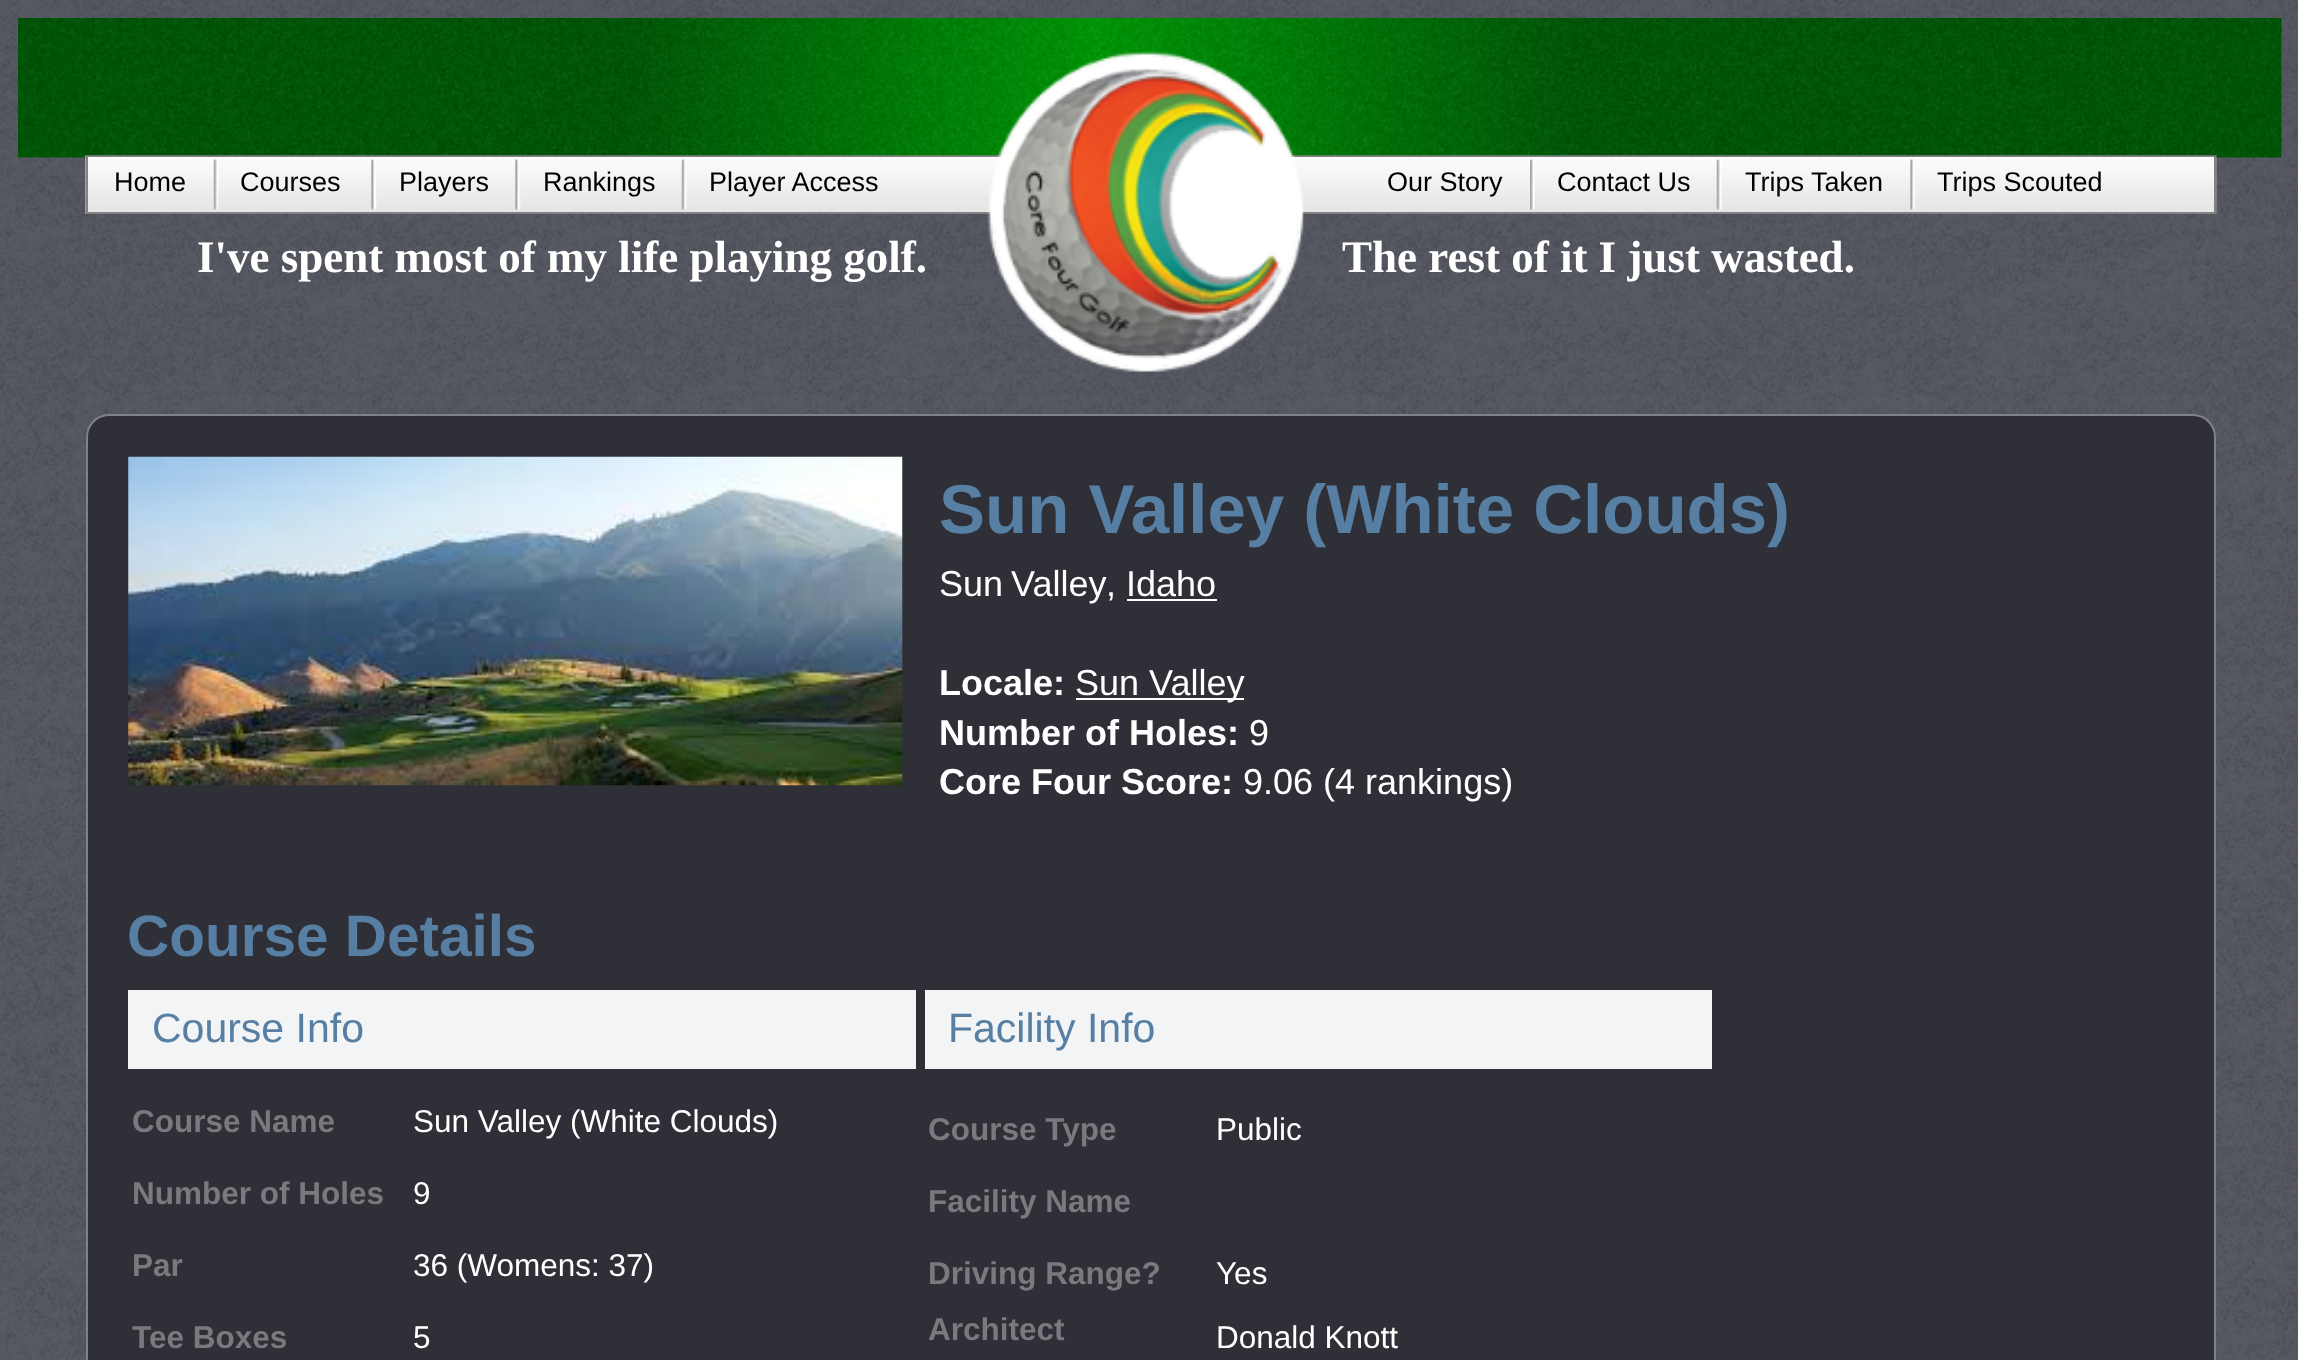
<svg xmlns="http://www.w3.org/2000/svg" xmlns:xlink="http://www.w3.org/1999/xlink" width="2298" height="1360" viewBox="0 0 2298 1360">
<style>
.cls-1{font:27px Liberation Sans;fill:#000000}
.cls-2{font:bold 45px Liberation Serif;fill:#ffffff}
.cls-3{font:bold 69px Liberation Sans;fill:#567fa3}
.cls-4{font:36px Liberation Sans;fill:#ffffff}
.cls-5{font:bold 36px Liberation Sans;fill:#ffffff}
.cls-6{font:bold 58.5px Liberation Sans;fill:#567fa3}
.cls-7{font:41px Liberation Sans;fill:#567fa3}
.cls-8{font:bold 31.5px Liberation Sans;fill:#7a7a7e}
.cls-9{font:31.5px Liberation Sans;fill:#ffffff}
</style>
<rect width="100%" height="100%" fill="#ffffff"/>
<image xlink:href="image0.png" x="0" y="0" width="2298" height="1360"/>
<image xlink:href="image1.png" x="18" y="18" width="2264" height="140"/>
<image xlink:href="image4.png" x="85" y="155" width="2132" height="59"/>
<rect fill="none" stroke="#828282" stroke-width="2" x="87" y="156" width="2128" height="57"/>
<image xlink:href="image2.png" x="85" y="18" width="2131" height="138"/>
<image xlink:href="image3.png" x="987" y="51" width="317" height="321"/>
<image xlink:href="image5.png" x="213" y="159" width="6" height="51"/>
<rect fill="#ffffff" x="375" y="162" width="1" height="45"/>
<image xlink:href="image6.png" x="371" y="159" width="6" height="51"/>
<image xlink:href="image7.png" x="515" y="159" width="6" height="51"/>
<image xlink:href="image8.png" x="681" y="159" width="6" height="51"/>
<image xlink:href="image9.png" x="1530" y="159" width="5" height="51"/>
<image xlink:href="image8.png" x="1716" y="159" width="6" height="51"/>
<image xlink:href="image7.png" x="1910" y="159" width="6" height="51"/>
<rect fill="#2f3037" stroke="#808188" stroke-width="2" x="87" y="415" width="2128" height="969" rx="22"/>
<image xlink:href="image10.png" x="128" y="456" width="775" height="330"/>
<rect fill="#ffffff" x="1127" y="599" width="90" height="2"/>
<rect fill="#ffffff" x="1076" y="698" width="168" height="2"/>
<rect fill="#f3f4f6" x="128" y="990" width="788" height="79"/>
<rect fill="#f3f4f6" x="925" y="990" width="787" height="79"/>
<text class="cls-1" x="114" y="191">Home</text>
<text class="cls-1" x="240" y="191">Courses</text>
<text class="cls-1" x="399" y="191">Players</text>
<text class="cls-1" x="543" y="191">Rankings</text>
<text class="cls-1" x="709" y="191">Player Access</text>
<text class="cls-1" x="1387" y="191">Our Story</text>
<text class="cls-1" x="1557" y="191">Contact Us</text>
<text class="cls-1" x="1745" y="191">Trips Taken</text>
<text class="cls-1" x="1937" y="191">Trips Scouted</text>
<text class="cls-2" x="197" y="272">I've spent most of my life playing golf.</text>
<text class="cls-2" x="1342" y="272">The rest of it I just wasted.</text>
<text class="cls-3" x="939" y="533">Sun Valley (White Clouds)</text>
<text class="cls-4" x="939" y="596" word-spacing="-2">Sun Valley</text>
<text class="cls-4" x="1106" y="596">, Idaho</text>
<text class="cls-5" x="939" y="695">Locale:</text>
<text class="cls-4" x="1075" y="695">Sun Valley</text>
<text class="cls-5" x="939" y="745">Number of Holes:</text>
<text class="cls-4" x="1249" y="745">9</text>
<text class="cls-5" x="939" y="794">Core Four Score:</text>
<text class="cls-4" x="1243" y="794">9.06 (4 rankings)</text>
<text class="cls-6" x="127" y="956">Course Details</text>
<text class="cls-7" x="152" y="1042">Course Info</text>
<text class="cls-7" x="948" y="1042">Facility Info</text>
<text class="cls-8" x="132" y="1132">Course Name</text>
<text class="cls-9" x="413" y="1132">Sun Valley (White Clouds)</text>
<text class="cls-8" x="132" y="1204">Number of Holes</text>
<text class="cls-9" x="413" y="1204">9</text>
<text class="cls-8" x="132" y="1276">Par</text>
<text class="cls-9" x="413" y="1276">36 (Womens: 37)</text>
<text class="cls-8" x="132" y="1348">Tee Boxes</text>
<text class="cls-9" x="413" y="1348">5</text>
<text class="cls-8" x="928" y="1140">Course Type</text>
<text class="cls-9" x="1216" y="1140">Public</text>
<text class="cls-8" x="928" y="1212">Facility Name</text>
<text class="cls-8" x="928" y="1284">Driving Range?</text>
<text class="cls-9" x="1216" y="1284">Yes</text>
<text class="cls-8" x="928" y="1340">Architect</text>
<text class="cls-9" x="1216" y="1348">Donald Knott</text>
</svg>
